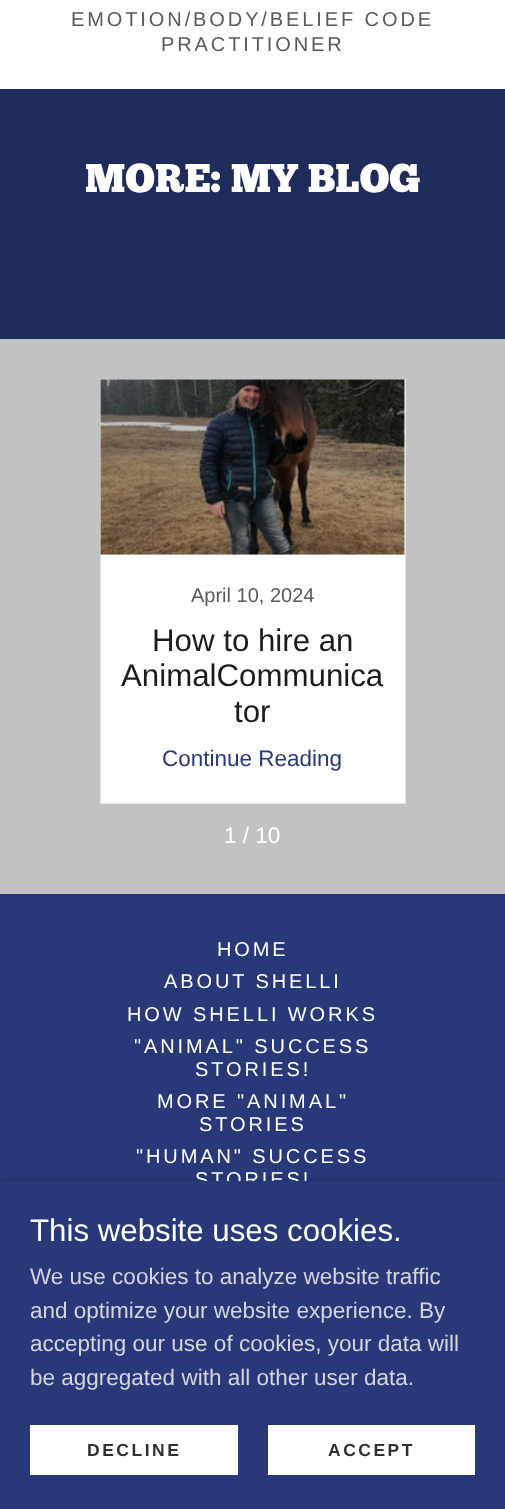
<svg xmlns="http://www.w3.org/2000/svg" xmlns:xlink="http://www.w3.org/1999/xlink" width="505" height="1509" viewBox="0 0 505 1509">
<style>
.cls-1{font:20px Liberation Sans;letter-spacing:2.9px;fill:#595959}
.cls-2{font:40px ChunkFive;fill:#ffffff}
.cls-3{font:20px Liberation Sans;fill:#595959}
.cls-4{font:31.25px Liberation Sans;fill:#1b1b1b}
.cls-5{font:22.5px Liberation Sans;fill:#283878}
.cls-6{font:22.5px Liberation Sans;fill:#ffffff}
.cls-7{font:20px Liberation Sans;letter-spacing:2.9px;fill:#ffffff}
.cls-8{font:31.25px Liberation Sans;fill:#ffffff}
.cls-9{font:22.5px Liberation Sans;fill:#d5d6dc}
.cls-10{font:bold 17.5px Liberation Sans;letter-spacing:2.5px;fill:#303030}
</style>
<rect width="100%" height="100%" fill="#283878"/>
<rect fill="#ffffff" x="0" y="0" width="505" height="89"/>
<rect fill="#1e2b5b" x="0" y="89" width="505" height="250"/>
<rect fill="#c2c2c2" x="0" y="339" width="505" height="555"/>
<rect fill="#ffffff" stroke="#e2e2e2" x="100.5" y="379.5" width="305" height="424"/>
<image xlink:href="image0.png" x="100" y="379" width="305" height="176"/>
<rect fill="#000000" fill-opacity="0.3" filter="blur(4px)" x="0" y="1184" width="505" height="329"/>
<text class="cls-1" x="71" y="26">EMOTION/BODY/BELIEF CODE</text>
<text class="cls-1" x="161" y="51">PRACTITIONER</text>
<text class="cls-2" x="85" y="192">MORE: MY BLOG</text>
<text class="cls-3" x="191" y="602">April 10, 2024</text>
<text class="cls-4" x="152" y="651">How to hire an</text>
<text class="cls-4" x="121" y="686">AnimalCommunica</text>
<text class="cls-4" x="234" y="722">tor</text>
<text class="cls-5" x="162" y="766">Continue Reading</text>
<text class="cls-6" x="224" y="843">1 / 10</text>
<text class="cls-7" x="217" y="956">HOME</text>
<text class="cls-7" x="164" y="988">ABOUT SHELLI</text>
<text class="cls-7" x="127" y="1021">HOW SHELLI WORKS</text>
<text class="cls-7" x="134" y="1053">"ANIMAL" SUCCESS</text>
<text class="cls-7" x="195" y="1076">STORIES!</text>
<text class="cls-7" x="157" y="1108">MORE "ANIMAL"</text>
<text class="cls-7" x="199" y="1131">STORIES</text>
<text class="cls-7" x="136" y="1163">"HUMAN" SUCCESS</text>
<text class="cls-7" x="195" y="1186">STORIES!</text>
<rect fill="#283878" x="0" y="1181" width="505" height="328"/>
<text class="cls-8" x="30" y="1241">This website uses cookies.</text>
<text class="cls-9"><tspan x="30" y="1284">We use cookies to analyze website traffic</tspan><tspan x="30" y="1318">and optimize your website experience. By</tspan><tspan x="30" y="1351">accepting our use of cookies, your data will</tspan><tspan x="30" y="1385">be aggregated with all other user data.</tspan></text>
<rect fill="#ffffff" x="30" y="1425" width="208" height="50"/>
<text class="cls-10" x="87" y="1456">DECLINE</text>
<rect fill="#ffffff" x="268" y="1425" width="207" height="50"/>
<text class="cls-10" x="328" y="1456">ACCEPT</text>
</svg>
